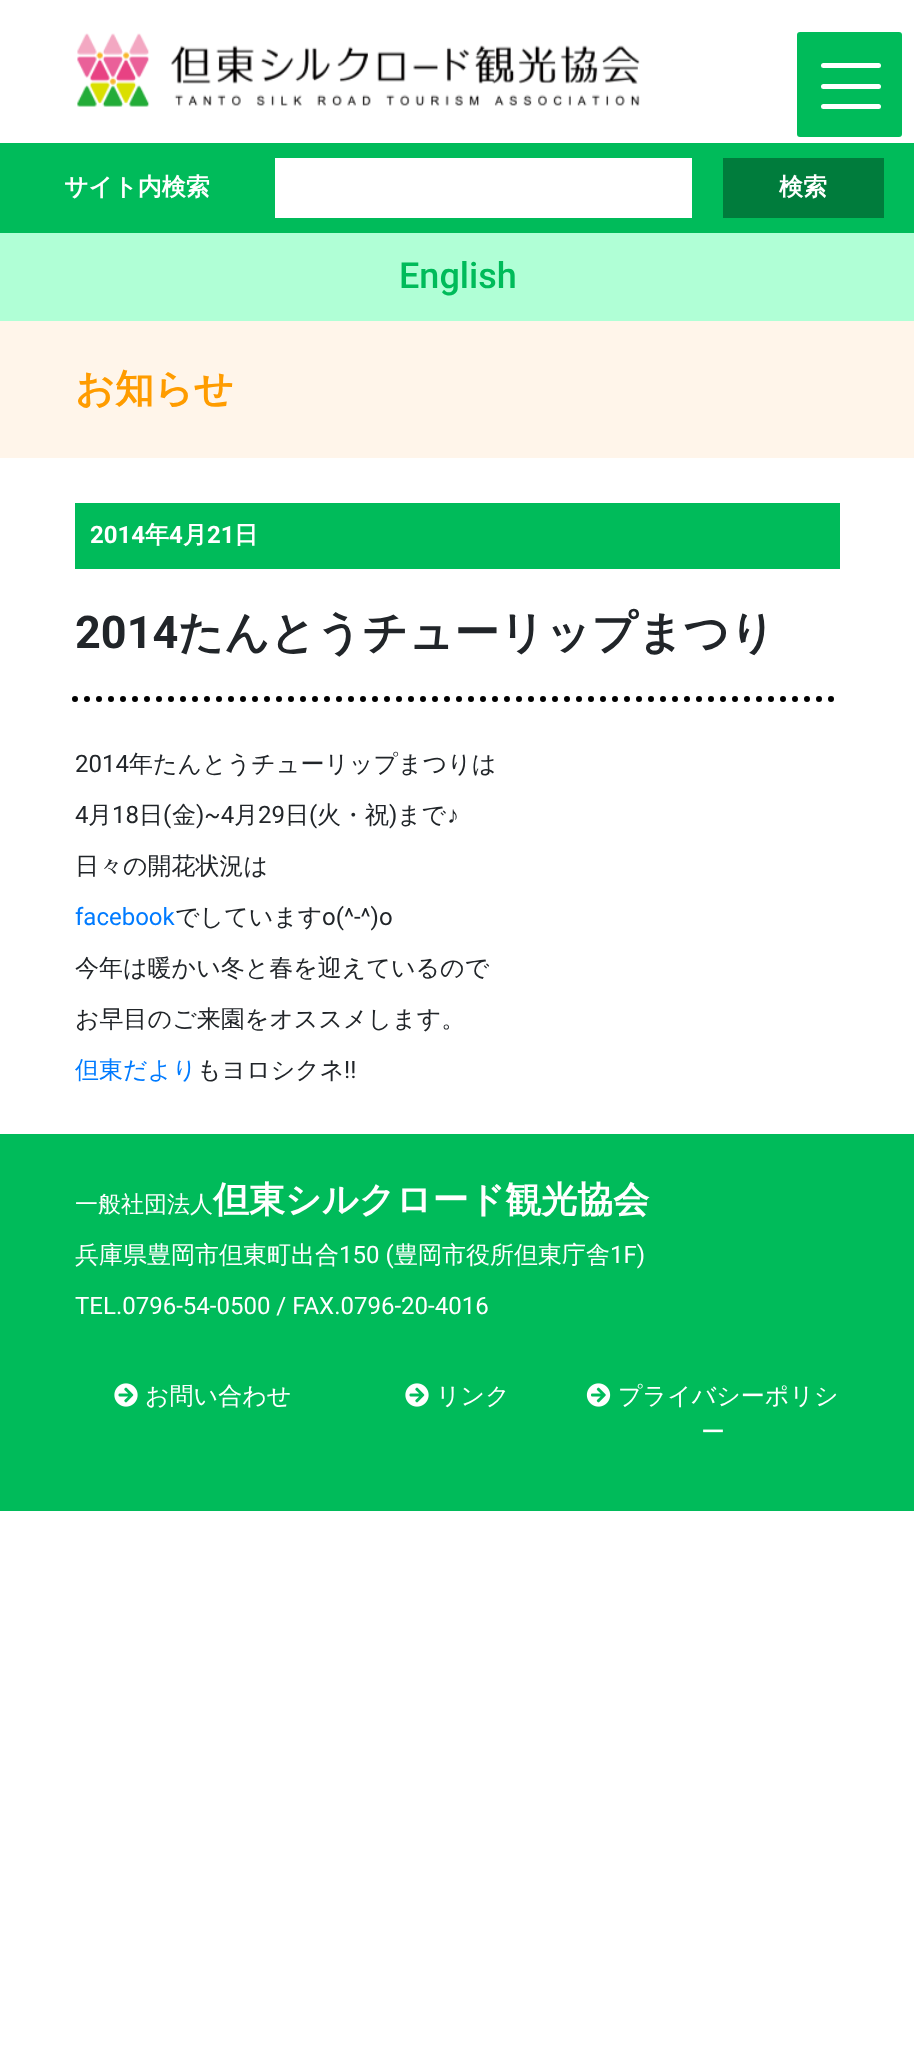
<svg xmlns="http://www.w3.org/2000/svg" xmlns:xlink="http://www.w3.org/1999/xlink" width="914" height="2059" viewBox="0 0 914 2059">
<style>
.cls-1{font:bold 24px WenQuanYi Zen Hei;fill:#ffffff}
.cls-2{font:500 36px Roboto;fill:#00bb5a}
.cls-3{font:bold 39px WenQuanYi Zen Hei;fill:#ff9c00}
.cls-4{font:bold 24px Roboto;fill:#ffffff}
.cls-5{font:bold 45px Roboto;fill:#212529}
.cls-6{font:bold 45px WenQuanYi Zen Hei;fill:#212529}
.cls-7{font:24px Roboto;fill:#212529}
.cls-8{font:500 24px WenQuanYi Zen Hei;fill:#212529}
.cls-9{font:24px Liberation Sans;fill:#212529}
.cls-10{font:24px Roboto;fill:#007bff}
.cls-11{font:500 24px WenQuanYi Zen Hei;fill:#007bff}
.cls-12{font:500 23px WenQuanYi Zen Hei;fill:#ffffff}
.cls-13{font:bold 36px WenQuanYi Zen Hei;fill:#ffffff}
.cls-14{font:500 24px WenQuanYi Zen Hei;fill:#ffffff}
.cls-15{font:24px Roboto;fill:#ffffff}
</style>
<rect width="100%" height="100%" fill="#ffffff"/>
<image xlink:href="image0.png" x="77" y="33" width="563" height="74"/>
<rect fill="#00bb5a" x="797" y="32" width="105" height="105" rx="3"/>
<rect fill="#ffffff" x="821" y="63" width="60" height="5" rx="2.5"/>
<rect fill="#ffffff" x="821" y="84" width="60" height="5" rx="2.5"/>
<rect fill="#ffffff" x="821" y="104" width="60" height="5" rx="2.5"/>
<rect fill="#00bb5a" x="0" y="143" width="914" height="90"/>
<rect fill="#ffffff" x="275" y="158" width="417" height="60"/>
<rect fill="#007c3c" x="723" y="158" width="161" height="60"/>
<rect fill="#b0ffd6" x="0" y="233" width="914" height="88"/>
<rect fill="#fff5ea" x="0" y="321" width="914" height="137"/>
<rect fill="#00bb5a" x="75" y="503" width="765" height="66"/>
<path fill="none" stroke="#000000" stroke-width="6" stroke-linecap="round" stroke-dasharray="0 12" d="M75 699H840"/>
<rect fill="#00bb5a" x="0" y="1134" width="914" height="377"/>
<image xlink:href="image1.png" x="114" y="1383" width="24" height="24"/>
<image xlink:href="image1.png" x="405" y="1383" width="24" height="24"/>
<image xlink:href="image2.png" x="586" y="1383" width="25" height="24"/>
<text class="cls-1" x="64" y="195">サイト内検索</text>
<text class="cls-1" x="779" y="195">検索</text>
<text class="cls-2" x="399" y="288">English</text>
<text class="cls-3" x="75" y="402">お知らせ</text>
<text class="cls-4" x="90" y="543">2014</text>
<text class="cls-1" x="145" y="543">年</text>
<text class="cls-4" x="169" y="543">4</text>
<text class="cls-1" x="183" y="543">月</text>
<text class="cls-4" x="207" y="543">21</text>
<text class="cls-1" x="234" y="543">日</text>
<text class="cls-5" x="75" y="648">2014</text>
<text class="cls-6" x="178" y="648">たんとうチューリップまつり</text>
<text class="cls-7" x="75" y="772">2014</text>
<text class="cls-8" x="129" y="772">年たんとうチューリップまつりは</text>
<text class="cls-7" x="75" y="823">4</text>
<text class="cls-8" x="88" y="823">月</text>
<text class="cls-7" x="112" y="823">18</text>
<text class="cls-8" x="139" y="823">日</text>
<text class="cls-7" x="163" y="823">(</text>
<text class="cls-8" x="172" y="823">金</text>
<text class="cls-7" x="196" y="823">)~4</text>
<text class="cls-8" x="234" y="823">月</text>
<text class="cls-7" x="258" y="823">29</text>
<text class="cls-8" x="285" y="823">日</text>
<text class="cls-7" x="309" y="823">(</text>
<text class="cls-8" x="317" y="823">火・祝</text>
<text class="cls-7" x="389" y="823">)</text>
<text class="cls-8" x="397" y="823">まで</text>
<text class="cls-9" x="447" y="823">♪</text>
<text class="cls-8" x="75" y="874">日々の開花状況は</text>
<text class="cls-10" x="75" y="925">facebook</text>
<text class="cls-8" x="175" y="925">でしています</text>
<text class="cls-7" x="322" y="925">o(^-^)o</text>
<text class="cls-8" x="75" y="976">今年は暖かい冬と春を迎えているので</text>
<text class="cls-8" x="75" y="1027">お早目のご来園をオススメします。</text>
<text class="cls-11" x="75" y="1078">但東だより</text>
<text class="cls-8" x="197" y="1078">もヨロシクネ</text>
<text class="cls-7" x="344" y="1078">!!</text>
<text class="cls-12" x="75" y="1212">一般社団法人</text>
<text class="cls-13" x="213" y="1212">但東シルクロード観光協会</text>
<text class="cls-14" x="75" y="1263">兵庫県豊岡市但東町出合</text>
<text class="cls-15" x="339" y="1263">150 (</text>
<text class="cls-14" x="394" y="1263">豊岡市役所但東庁舎</text>
<text class="cls-15" x="610" y="1263">1F)</text>
<text class="cls-15" x="75" y="1314">TEL.0796-54-0500 / FAX.0796-20-4016</text>
<text class="cls-14" x="145" y="1404">お問い合わせ</text>
<text class="cls-14" x="436" y="1404">リンク</text>
<text class="cls-14" x="618" y="1404">プライバシーポリシ</text>
<text class="cls-14" x="701" y="1440">ー</text>
</svg>
